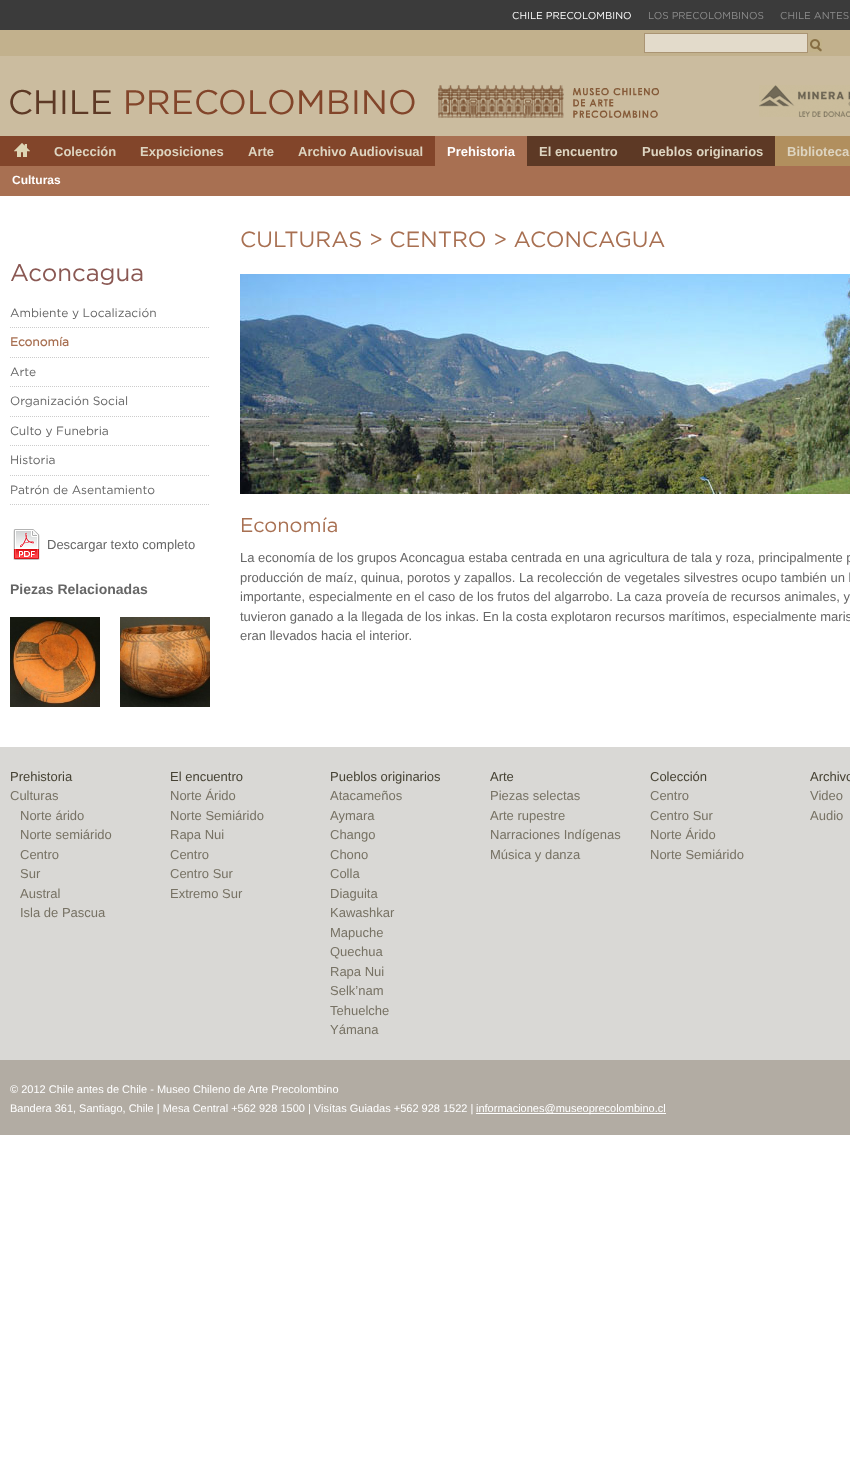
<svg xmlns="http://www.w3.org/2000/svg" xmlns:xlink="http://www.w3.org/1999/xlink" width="850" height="1459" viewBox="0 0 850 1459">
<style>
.cls-1{font:10px Gotham;fill:#ffffff}
.cls-2{font:10px Gotham;fill:#8d8d8d}
.cls-3{font:bold 13px Liberation Sans;fill:#ddd4c0}
.cls-4{font:bold 13px Liberation Sans;fill:#ffffff}
.cls-5{font:bold 12px Liberation Sans;fill:#ffffff}
.cls-6{font:24px Gotham;fill:#8a5853}
.cls-7{font:12px Gotham;fill:#666666}
.cls-8{font:bold 12px Gotham;fill:#a87052}
.cls-9{font:13px Liberation Sans;fill:#666666}
.cls-10{font:bold 14px Liberation Sans;fill:#666666}
.cls-11{font:22px Gotham;fill:#a87052}
.cls-12{font:20px Gotham;fill:#a87052}
.cls-13{font:13px Liberation Sans;fill:#464234}
.cls-14{font:13px Liberation Sans;fill:#777264}
.cls-15{font:11px Liberation Sans;fill:#ffffff}
</style>
<rect width="100%" height="100%" fill="#ffffff"/>
<rect fill="#3b3b3b" x="0" y="0" width="850" height="30"/>
<rect fill="#c2b18d" x="0" y="30" width="850" height="26"/>
<rect fill="#e3dbcb" stroke="#aa9473" x="644.5" y="33.5" width="163" height="19"/>
<image xlink:href="image0.png" x="810" y="39" width="12" height="13"/>
<rect fill="#cbbc9f" x="0" y="56" width="850" height="80"/>
<image xlink:href="image1.png" x="10" y="89" width="405" height="26"/>
<image xlink:href="image2.png" x="438" y="85" width="221" height="33"/>
<image xlink:href="image3.png" x="759" y="85" width="91" height="32"/>
<image xlink:href="image4.png" x="0" y="136" width="850" height="30"/>
<image xlink:href="image5.png" x="14" y="143" width="16" height="14"/>
<rect fill="#82452a" x="425" y="136" width="10" height="30"/>
<rect fill="#a87052" x="435" y="136" width="92" height="30"/>
<rect fill="#5d3925" x="527" y="136" width="248" height="30"/>
<rect fill="#a87052" x="0" y="166" width="850" height="30"/>
<path fill="none" stroke="#cccccc" stroke-dasharray="1 1" d="M10 327.5H210"/>
<path fill="none" stroke="#cccccc" stroke-dasharray="1 1" d="M10 357.5H210"/>
<path fill="none" stroke="#cccccc" stroke-dasharray="1 1" d="M10 386.5H210"/>
<path fill="none" stroke="#cccccc" stroke-dasharray="1 1" d="M10 416.5H210"/>
<path fill="none" stroke="#cccccc" stroke-dasharray="1 1" d="M10 445.5H210"/>
<path fill="none" stroke="#cccccc" stroke-dasharray="1 1" d="M10 475.5H210"/>
<path fill="none" stroke="#cccccc" stroke-dasharray="1 1" d="M10 504.5H210"/>
<image xlink:href="image6.png" x="13" y="529" width="27" height="31"/>
<image xlink:href="image7.png" x="10" y="617" width="90" height="90"/>
<image xlink:href="image8.png" x="120" y="617" width="90" height="90"/>
<image xlink:href="image9.png" x="240" y="274" width="610" height="220"/>
<rect fill="#d9d8d5" x="0" y="747" width="850" height="313"/>
<rect fill="#b2aca3" x="0" y="1060" width="850" height="75"/>
<rect fill="#ffffff" x="476" y="1113" width="190" height="1"/>
<text class="cls-1" x="512" y="19">CHILE PRECOLOMBINO</text>
<text class="cls-2" x="648" y="19">LOS PRECOLOMBINOS</text>
<text class="cls-2" x="780" y="19">CHILE ANTES</text>
<text class="cls-3" x="54" y="156">Colección</text>
<text class="cls-3" x="140" y="156">Exposiciones</text>
<text class="cls-3" x="248" y="156">Arte</text>
<text class="cls-3" x="298" y="156">Archivo Audiovisual</text>
<text class="cls-4" x="447" y="156">Prehistoria</text>
<text class="cls-3" x="539" y="156">El encuentro</text>
<text class="cls-3" x="642" y="156">Pueblos originarios</text>
<text class="cls-3" x="787" y="156">Biblioteca</text>
<text class="cls-5" x="12" y="184">Culturas</text>
<text class="cls-6" x="10" y="281">Aconcagua</text>
<text class="cls-7" x="10" y="317">Ambiente y Localización</text>
<text class="cls-8" x="10" y="346">Economía</text>
<text class="cls-7" x="10" y="376">Arte</text>
<text class="cls-7" x="10" y="405">Organización Social</text>
<text class="cls-7" x="10" y="435">Culto y Funebria</text>
<text class="cls-7" x="10" y="464">Historia</text>
<text class="cls-7" x="10" y="494">Patrón de Asentamiento</text>
<text class="cls-9" x="47" y="549">Descargar texto completo</text>
<text class="cls-10" x="10" y="594">Piezas Relacionadas</text>
<text class="cls-11" x="240" y="247">CULTURAS &gt; CENTRO &gt; ACONCAGUA</text>
<text class="cls-12" x="240" y="532">Economía</text>
<text class="cls-9"><tspan x="240" y="562">La economía de los grupos Aconcagua estaba centrada en una agricultura de tala y roza, principalmente p</tspan><tspan x="240" y="582">producción de maíz, quinua, porotos y zapallos. La recolección de vegetales silvestres ocupo también un l</tspan><tspan x="240" y="601">importante, especialmente en el caso de los frutos del algarrobo. La caza proveía de recursos animales, y</tspan><tspan x="240" y="621">tuvieron ganado a la llegada de los inkas. En la costa explotaron recursos marítimos, especialmente maris</tspan><tspan x="240" y="640">eran llevados hacia el interior.</tspan></text>
<text class="cls-13" x="10" y="781">Prehistoria</text>
<text class="cls-14" x="10" y="800">Culturas</text>
<text class="cls-14"><tspan x="20" y="820">Norte árido</tspan><tspan x="20" y="839">Norte semiárido</tspan><tspan x="20" y="859">Centro</tspan><tspan x="20" y="878">Sur</tspan><tspan x="20" y="898">Austral</tspan><tspan x="20" y="917">Isla de Pascua</tspan></text>
<text class="cls-13" x="170" y="781">El encuentro</text>
<text class="cls-14"><tspan x="170" y="800">Norte Árido</tspan><tspan x="170" y="820">Norte Semiárido</tspan><tspan x="170" y="839">Rapa Nui</tspan><tspan x="170" y="859">Centro</tspan><tspan x="170" y="878">Centro Sur</tspan><tspan x="170" y="898">Extremo Sur</tspan></text>
<text class="cls-13" x="330" y="781">Pueblos originarios</text>
<text class="cls-14"><tspan x="330" y="800">Atacameños</tspan><tspan x="330" y="820">Aymara</tspan><tspan x="330" y="839">Chango</tspan><tspan x="330" y="859">Chono</tspan><tspan x="330" y="878">Colla</tspan><tspan x="330" y="898">Diaguita</tspan><tspan x="330" y="917">Kawashkar</tspan><tspan x="330" y="937">Mapuche</tspan><tspan x="330" y="956">Quechua</tspan><tspan x="330" y="976">Rapa Nui</tspan><tspan x="330" y="995">Selk’nam</tspan><tspan x="330" y="1015">Tehuelche</tspan><tspan x="330" y="1034">Yámana</tspan></text>
<text class="cls-13" x="490" y="781">Arte</text>
<text class="cls-14"><tspan x="490" y="800">Piezas selectas</tspan><tspan x="490" y="820">Arte rupestre</tspan><tspan x="490" y="839">Narraciones Indígenas</tspan><tspan x="490" y="859">Música y danza</tspan></text>
<text class="cls-13" x="650" y="781">Colección</text>
<text class="cls-14"><tspan x="650" y="800">Centro</tspan><tspan x="650" y="820">Centro Sur</tspan><tspan x="650" y="839">Norte Árido</tspan><tspan x="650" y="859">Norte Semiárido</tspan></text>
<text class="cls-13" x="810" y="781">Archivo</text>
<text class="cls-14"><tspan x="810" y="800">Video</tspan><tspan x="810" y="820">Audio</tspan></text>
<text class="cls-15"><tspan x="10" y="1093">© 2012 Chile antes de Chile - Museo Chileno de Arte Precolombino</tspan><tspan x="10" y="1112">Bandera 361, Santiago, Chile | Mesa Central +562 928 1500 | Visítas Guiadas +562 928 1522 |</tspan></text>
<text class="cls-15" x="476" y="1112">informaciones@museoprecolombino.cl</text>
</svg>
